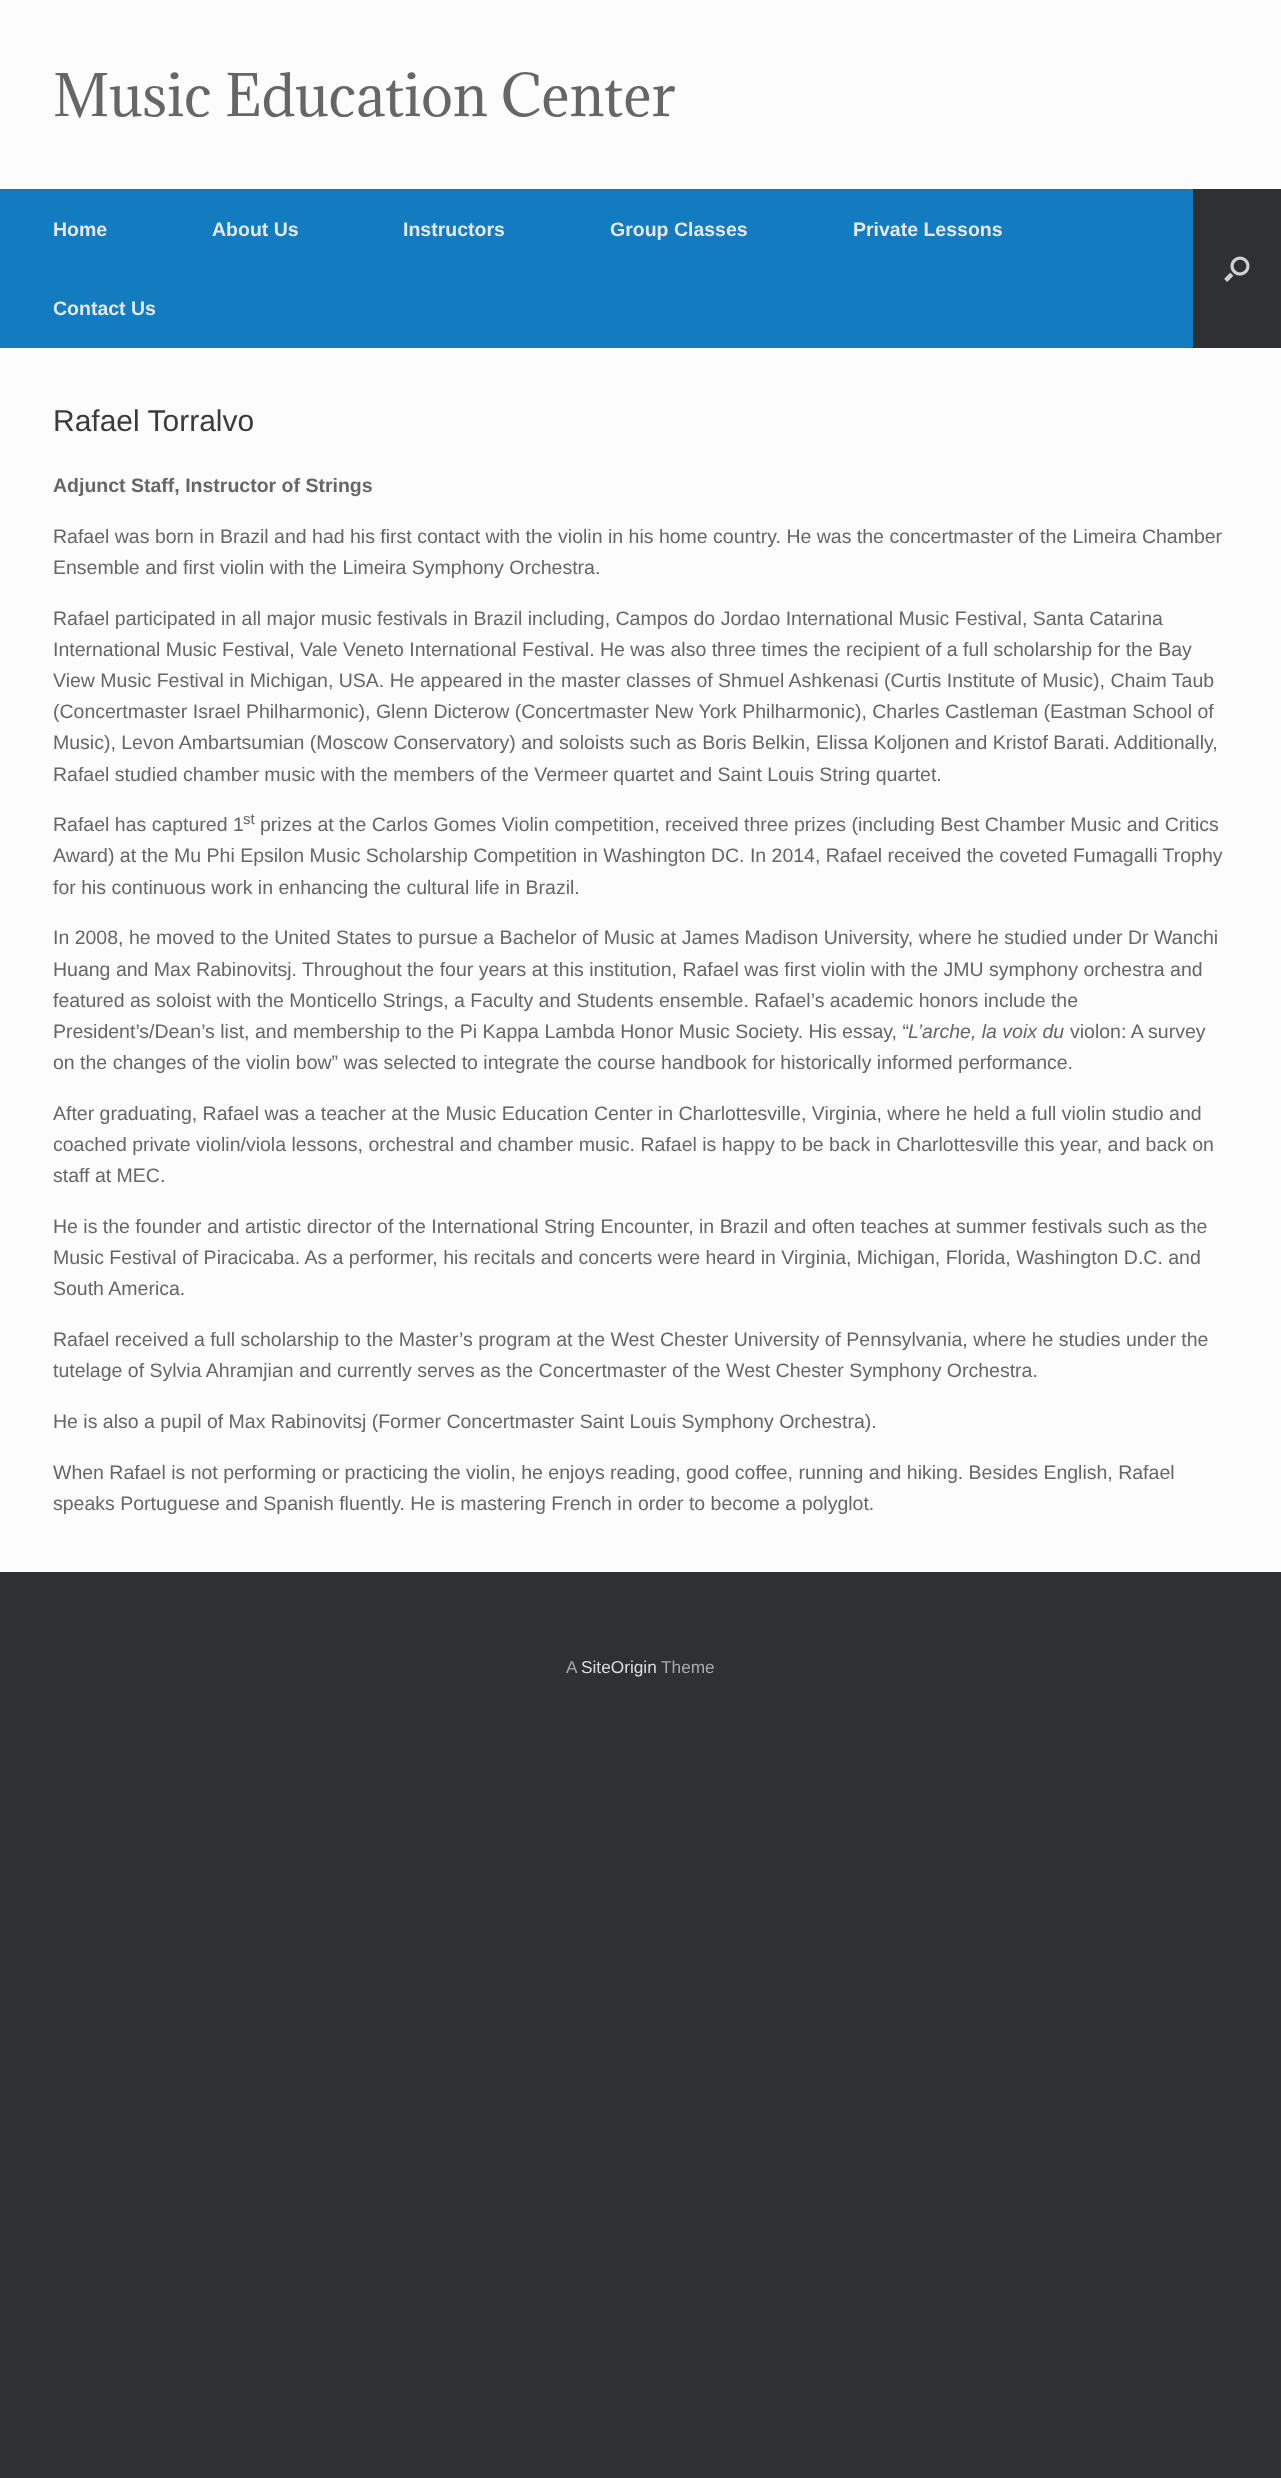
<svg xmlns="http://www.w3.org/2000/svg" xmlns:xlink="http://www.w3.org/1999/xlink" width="1281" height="2478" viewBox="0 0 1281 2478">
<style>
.cls-1{font:54px Adamina;fill:#666666}
.cls-2{font:bold 19.5px Liberation Sans;fill:#e7e7e8}
.cls-3{font:30px Liberation Sans;fill:#3b3b3b}
.cls-4{font:bold 19.5px Liberation Sans;fill:#666666}
.cls-5{font:19.5px Liberation Sans;fill:#666666}
.cls-6{font:15px Liberation Sans;fill:#666666}
.cls-7{font:italic 19.5px Liberation Sans;fill:#666666}
.cls-8{font:17.25px Liberation Sans;fill:#aaaaaa}
.cls-9{font:17.25px Liberation Sans;fill:#dddddd}
</style>
<rect width="100%" height="100%" fill="#2f3033"/>
<rect fill="#fcfcfc" x="0" y="0" width="1281" height="189"/>
<rect fill="#137cc1" x="0" y="189" width="1193" height="159"/>
<image xlink:href="image0.png" x="1224" y="256" width="26" height="26"/>
<rect fill="#fcfcfc" x="0" y="348" width="1281" height="1224"/>
<text class="cls-1" x="53" y="116">Music Education Center</text>
<text class="cls-2" x="53" y="236">Home</text>
<text class="cls-2" x="212" y="236">About Us</text>
<text class="cls-2" x="403" y="236">Instructors</text>
<text class="cls-2" x="610" y="236">Group Classes</text>
<text class="cls-2" x="853" y="236">Private Lessons</text>
<text class="cls-2" x="53" y="315">Contact Us</text>
<text class="cls-3" x="53" y="431">Rafael Torralvo</text>
<text class="cls-4" x="53" y="492">Adjunct Staff, Instructor of Strings</text>
<text class="cls-5"><tspan x="53" y="543">Rafael was born in Brazil and had his first contact with the violin in his home country. He was the concertmaster of the Limeira Chamber</tspan><tspan x="53" y="574">Ensemble and first violin with the Limeira Symphony Orchestra.</tspan></text>
<text class="cls-5"><tspan x="53" y="625">Rafael participated in all major music festivals in Brazil including, Campos do Jordao International Music Festival, Santa Catarina</tspan><tspan x="53" y="656">International Music Festival, Vale Veneto International Festival. He was also three times the recipient of a full scholarship for the Bay</tspan><tspan x="53" y="687">View Music Festival in Michigan, USA. He appeared in the master classes of Shmuel Ashkenasi (Curtis Institute of Music), Chaim Taub</tspan><tspan x="53" y="718">(Concertmaster Israel Philharmonic), Glenn Dicterow (Concertmaster New York Philharmonic), Charles Castleman (Eastman School of</tspan><tspan x="53" y="749">Music), Levon Ambartsumian (Moscow Conservatory) and soloists such as Boris Belkin, Elissa Koljonen and Kristof Barati. Additionally,</tspan><tspan x="53" y="781">Rafael studied chamber music with the members of the Vermeer quartet and Saint Louis String quartet.</tspan></text>
<text class="cls-5" x="53" y="831">Rafael has captured 1</text>
<text class="cls-6" x="243" y="824">st</text>
<text class="cls-5" x="260" y="831">prizes at the Carlos Gomes Violin competition, received three prizes (including Best Chamber Music and Critics</text>
<text class="cls-5"><tspan x="53" y="862">Award) at the Mu Phi Epsilon Music Scholarship Competition in Washington DC. In 2014, Rafael received the coveted Fumagalli Trophy</tspan><tspan x="53" y="894">for his continuous work in enhancing the cultural life in Brazil.</tspan></text>
<text class="cls-5"><tspan x="53" y="944">In 2008, he moved to the United States to pursue a Bachelor of Music at James Madison University, where he studied under Dr Wanchi</tspan><tspan x="53" y="976">Huang and Max Rabinovitsj. Throughout the four years at this institution, Rafael was first violin with the JMU symphony orchestra and</tspan><tspan x="53" y="1007">featured as soloist with the Monticello Strings, a Faculty and Students ensemble. Rafael’s academic honors include the</tspan><tspan x="53" y="1038">President’s/Dean’s list, and membership to the Pi Kappa Lambda Honor Music Society. His essay, “</tspan></text>
<text class="cls-7" x="908" y="1038">L’arche, la voix du</text>
<text class="cls-5" x="1070" y="1038">violon: A survey</text>
<text class="cls-5" x="53" y="1069">on the changes of the violin bow” was selected to integrate the course handbook for historically informed performance.</text>
<text class="cls-5"><tspan x="53" y="1120">After graduating, Rafael was a teacher at the Music Education Center in Charlottesville, Virginia, where he held a full violin studio and</tspan><tspan x="53" y="1151">coached private violin/viola lessons, orchestral and chamber music. Rafael is happy to be back in Charlottesville this year, and back on</tspan><tspan x="53" y="1182">staff at MEC.</tspan></text>
<text class="cls-5"><tspan x="53" y="1233">He is the founder and artistic director of the International String Encounter, in Brazil and often teaches at summer festivals such as the</tspan><tspan x="53" y="1264">Music Festival of Piracicaba. As a performer, his recitals and concerts were heard in Virginia, Michigan, Florida, Washington D.C. and</tspan><tspan x="53" y="1295">South America.</tspan></text>
<text class="cls-5"><tspan x="53" y="1346">Rafael received a full scholarship to the Master’s program at the West Chester University of Pennsylvania, where he studies under the</tspan><tspan x="53" y="1377">tutelage of Sylvia Ahramjian and currently serves as the Concertmaster of the West Chester Symphony Orchestra.</tspan></text>
<text class="cls-5" x="53" y="1428">He is also a pupil of Max Rabinovitsj (Former Concertmaster Saint Louis Symphony Orchestra).</text>
<text class="cls-5"><tspan x="53" y="1479">When Rafael is not performing or practicing the violin, he enjoys reading, good coffee, running and hiking. Besides English, Rafael</tspan><tspan x="53" y="1510">speaks Portuguese and Spanish fluently. He is mastering French in order to become a polyglot.</tspan></text>
<text class="cls-8" x="566" y="1673">A</text>
<text class="cls-9" x="581" y="1673">SiteOrigin</text>
<text class="cls-8" x="661" y="1673">Theme</text>
</svg>
